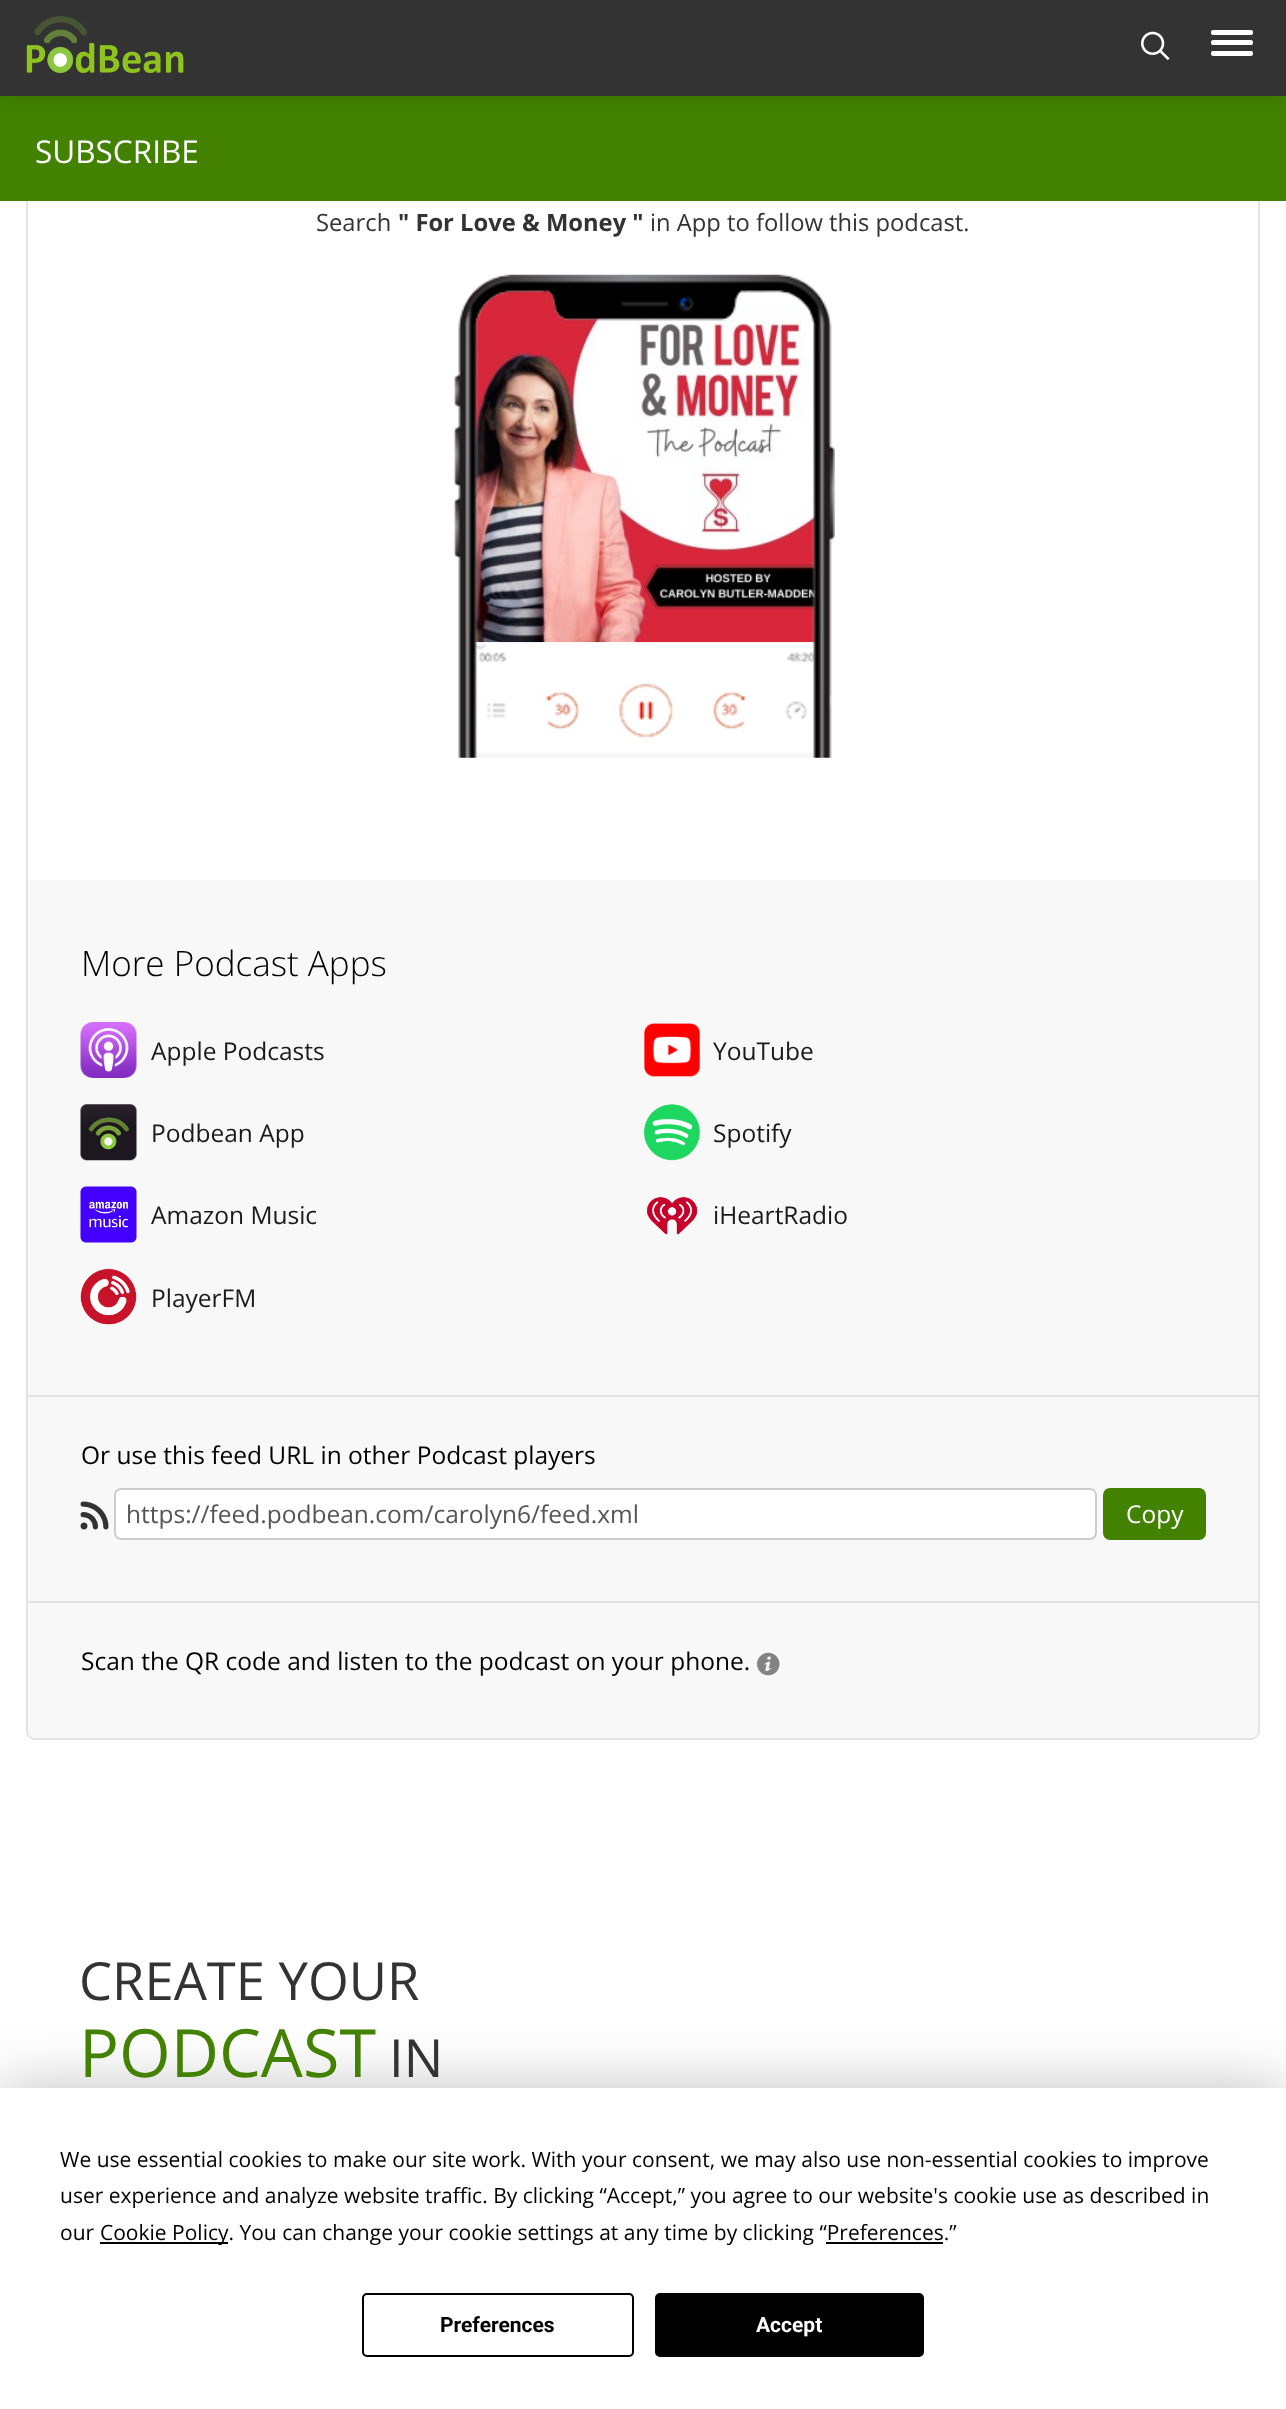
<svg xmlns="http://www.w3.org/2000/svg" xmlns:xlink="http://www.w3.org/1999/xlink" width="1286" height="2409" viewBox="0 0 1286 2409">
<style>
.cls-1{font:31.5px Open Sans;fill:#ffffff}
.cls-2{font:23.75px Open Sans;fill:#333333}
.cls-3{font:bold 23.75px Open Sans;fill:#333333}
.cls-4{font:300 35px Open Sans;fill:#000000}
.cls-5{font:24.5px Open Sans;fill:#1a1a1a}
.cls-6{font:24.5px Open Sans;fill:#000000}
.cls-7{font:24.5px Open Sans;fill:#555555}
.cls-8{font:24.5px Open Sans;fill:#ffffff}
.cls-9{font:52.5px Open Sans;fill:#333333}
.cls-10{font:66.5px Open Sans;fill:#428200}
.cls-11{font:21px Open Sans;fill:#000000}
.cls-12{font:bold 21px Roboto;fill:#000000}
.cls-13{font:bold 21px Roboto;fill:#ffffff}
</style>
<rect width="100%" height="100%" fill="#ffffff"/>
<rect fill="none" stroke="#e3e3e3" stroke-width="2" x="27" y="-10" width="1232" height="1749" rx="8"/>
<rect fill="#428200" x="0" y="96" width="1286" height="105"/>
<rect fill="#000000" fill-opacity="0.1" filter="blur(9px)" x="0" y="2" width="1286" height="96"/>
<rect fill="#333333" x="0" y="0" width="1286" height="96"/>
<image xlink:href="image0.png" x="26" y="16" width="158" height="57"/>
<image xlink:href="image1.png" x="1141" y="31" width="29" height="30"/>
<rect fill="#ffffff" x="1211" y="30" width="42" height="5" rx="2"/>
<rect fill="#ffffff" x="1211" y="40" width="42" height="5" rx="2"/>
<rect fill="#ffffff" x="1211" y="51" width="42" height="5" rx="2"/>
<image xlink:href="image3.png" x="467" y="289" width="354" height="354"/>
<image xlink:href="image2.png" x="453" y="274" width="382" height="484"/>
<rect fill="#f8f8f8" x="28" y="880" width="1230" height="515"/>
<image xlink:href="image4.png" x="80" y="1022" width="57" height="56"/>
<image xlink:href="image5.png" x="644" y="1023" width="56" height="54"/>
<image xlink:href="image6.png" x="80" y="1104" width="57" height="57"/>
<image xlink:href="image7.png" x="644" y="1104" width="56" height="57"/>
<image xlink:href="image8.png" x="80" y="1186" width="57" height="57"/>
<image xlink:href="image9.png" x="647" y="1197" width="50" height="38"/>
<image xlink:href="image10.png" x="80" y="1268" width="57" height="57"/>
<rect fill="#f8f8f8" x="28" y="1397" width="1230" height="204"/>
<rect fill="#e3e3e3" x="28" y="1395" width="1230" height="2"/>
<image xlink:href="image11.png" x="80" y="1501" width="29" height="29"/>
<rect fill="#ffffff" stroke="#cccccc" stroke-width="2" x="115" y="1489" width="981" height="50" rx="6"/>
<rect fill="#428200" x="1103" y="1488" width="103" height="52" rx="7"/>
<path fill="#f8f8f8" d="M28 1601H1258V1731C1258 1735 1255 1738 1251 1738H35C31 1738 28 1735 28 1731Z"/>
<rect fill="#e3e3e3" x="28" y="1601" width="1230" height="2"/>
<image xlink:href="image12.png" x="757" y="1652" width="23" height="24"/>
<rect fill="#000000" fill-opacity="0.25" filter="blur(30.5px)" x="0" y="2088" width="1286" height="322"/>
<rect fill="#ffffff" x="0" y="2088" width="1286" height="321"/>
<rect fill="#000000" x="100" y="2242" width="128" height="2"/>
<rect fill="#000000" x="826" y="2242" width="117" height="2"/>
<rect fill="none" stroke="#000000" stroke-width="2" x="363" y="2294" width="270" height="62" rx="4"/>
<rect fill="#000000" stroke="#000000" stroke-width="2" x="656" y="2294" width="267" height="62" rx="4"/>
<text class="cls-1" x="35" y="163">SUBSCRIBE</text>
<text class="cls-2" x="316" y="231">Search</text>
<text class="cls-3" x="398" y="231">" For Love &amp; Money "</text>
<text class="cls-2" x="650" y="231">in App to follow this podcast.</text>
<text class="cls-4" x="81" y="976">More Podcast Apps</text>
<text class="cls-5" x="151" y="1060">Apple Podcasts</text>
<text class="cls-5" x="713" y="1060">YouTube</text>
<text class="cls-5" x="151" y="1142">Podbean App</text>
<text class="cls-5" x="713" y="1142">Spotify</text>
<text class="cls-5" x="151" y="1224">Amazon Music</text>
<text class="cls-5" x="713" y="1224">iHeartRadio</text>
<text class="cls-5" x="151" y="1307">PlayerFM</text>
<text class="cls-6" x="81" y="1464">Or use this feed URL in other Podcast players</text>
<text class="cls-7" x="126" y="1523">https://feed.podbean.com/carolyn6/feed.xml</text>
<text class="cls-8" x="1126" y="1523">Copy</text>
<text class="cls-6" x="81" y="1670">Scan the QR code and listen to the podcast on your phone.</text>
<text class="cls-9" x="79" y="2000">CREATE YOUR</text>
<text class="cls-10" x="79" y="2077">PODCAST</text>
<text class="cls-9" x="389" y="2077">IN</text>
<text class="cls-11"><tspan x="60" y="2167">We use essential cookies to make our site work. With your consent, we may also use non-essential cookies to improve</tspan><tspan x="60" y="2203">user experience and analyze website traffic. By clicking “Accept,” you agree to our website's cookie use as described in</tspan><tspan x="60" y="2240">our</tspan></text>
<text class="cls-11" x="100" y="2240">Cookie Policy. You can change your cookie settings at any time by clicking “Preferences.”</text>
<text class="cls-12" x="440" y="2332">Preferences</text>
<text class="cls-13" x="756" y="2332">Accept</text>
</svg>
